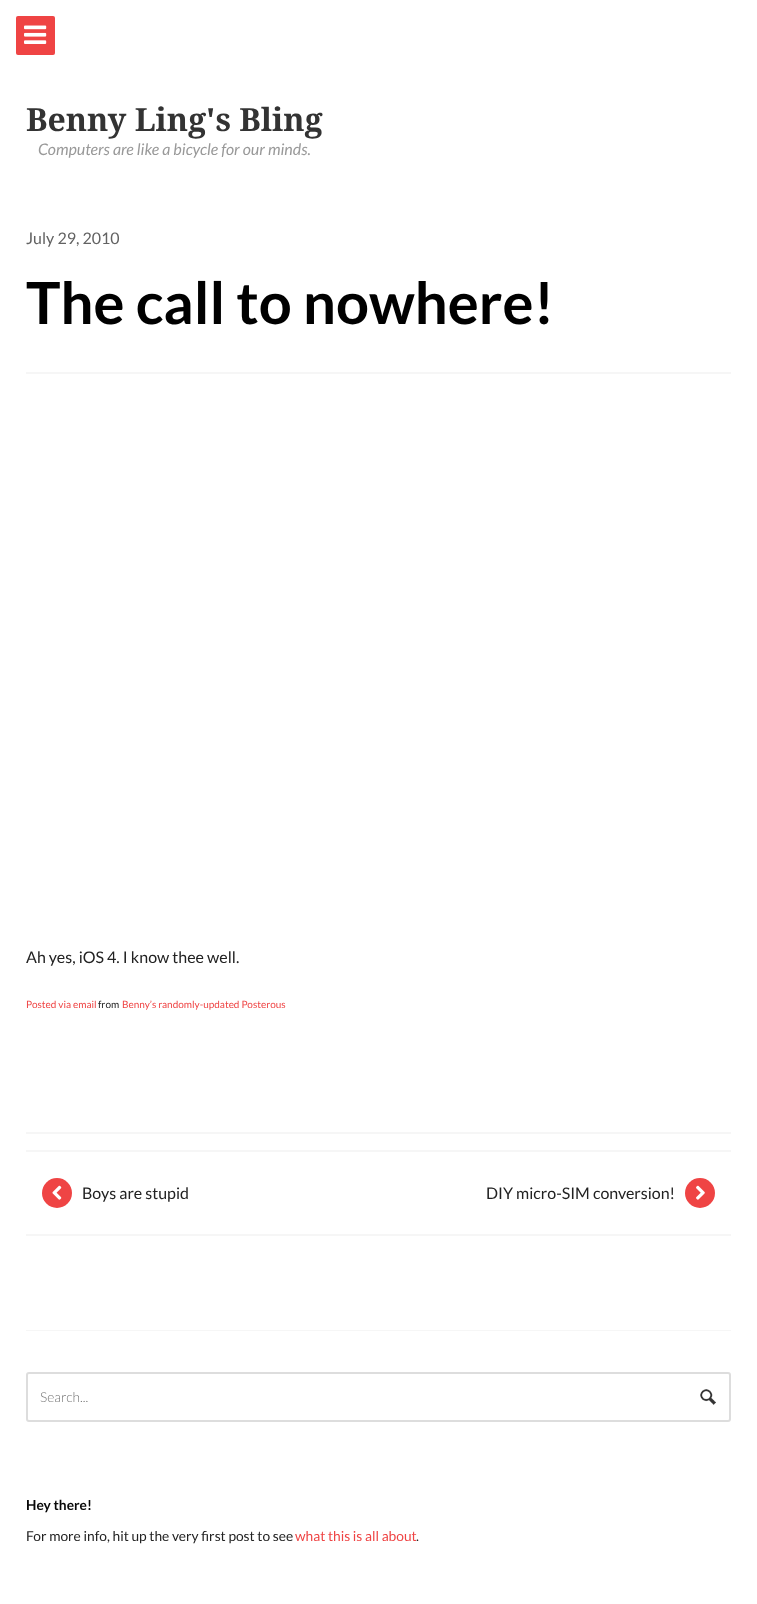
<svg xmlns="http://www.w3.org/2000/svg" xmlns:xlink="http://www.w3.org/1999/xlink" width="757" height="1604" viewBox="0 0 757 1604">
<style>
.cls-1{font:bold 32px Droid Serif;fill:#333333}
.cls-2{font:italic 16px Lato;fill:#999999}
.cls-3{font:16px Lato;fill:#626262}
.cls-4{font:bold 58px Lato;fill:#000000}
.cls-5{font:16px Lato;fill:#222222}
.cls-6{font:10px Lato;fill:#ef4444}
.cls-7{font:10px Lato;fill:#222222}
.cls-8{font:300 13.75px Lato;fill:#757575}
.cls-9{font:bold 13.75px Lato;fill:#080808}
.cls-10{font:13.75px Lato;fill:#222222}
.cls-11{font:13.75px Lato;fill:#ef4444}
</style>
<rect width="100%" height="100%" fill="#ffffff"/>
<rect fill="#ef4444" x="16" y="16" width="39" height="39" rx="2"/>
<image xlink:href="image0.png" x="24" y="25" width="23" height="19"/>
<rect fill="#f6f6f6" x="26" y="1132" width="705" height="2"/>
<rect fill="#f6f6f6" x="26" y="372" width="705" height="2"/>
<rect fill="#f6f6f6" x="26" y="1150" width="705" height="2"/>
<rect fill="#f6f6f6" x="26" y="1234" width="705" height="2"/>
<circle fill="#ef4444" cx="57" cy="1193" r="15"/>
<image xlink:href="image1.png" x="52" y="1185" width="10" height="15"/>
<circle fill="#ef4444" cx="700" cy="1193" r="15"/>
<image xlink:href="image2.png" x="696" y="1185" width="9" height="15"/>
<rect fill="#f6f6f6" x="26" y="1330" width="705" height="1"/>
<rect fill="none" stroke="#dddddd" stroke-width="2" x="27" y="1373" width="703" height="48" rx="2"/>
<image xlink:href="image3.png" x="700" y="1389" width="16" height="16"/>
<text class="cls-1" x="26" y="131">Benny Ling's Bling</text>
<text class="cls-2" x="38" y="155">Computers are like a bicycle for our minds.</text>
<text class="cls-3" x="26" y="244">July 29, 2010</text>
<text class="cls-4" x="26" y="324">The call to nowhere!</text>
<text class="cls-5" x="26" y="963">Ah yes, iOS 4. I know thee well.</text>
<text class="cls-6" x="26" y="1008">Posted via email</text>
<text class="cls-7" x="98" y="1008">from</text>
<text class="cls-6" x="122" y="1008">Benny’s randomly-updated Posterous</text>
<text class="cls-5" x="82" y="1199">Boys are stupid</text>
<text class="cls-5" x="486" y="1199">DIY micro-SIM conversion!</text>
<text class="cls-8" x="40" y="1402">Search...</text>
<text class="cls-9" x="26" y="1510">Hey there!</text>
<text class="cls-10" x="26" y="1541">For more info, hit up the very first post to see</text>
<text class="cls-11" x="295" y="1541">what this is all about</text>
<text class="cls-10" x="416" y="1541">.</text>
</svg>
